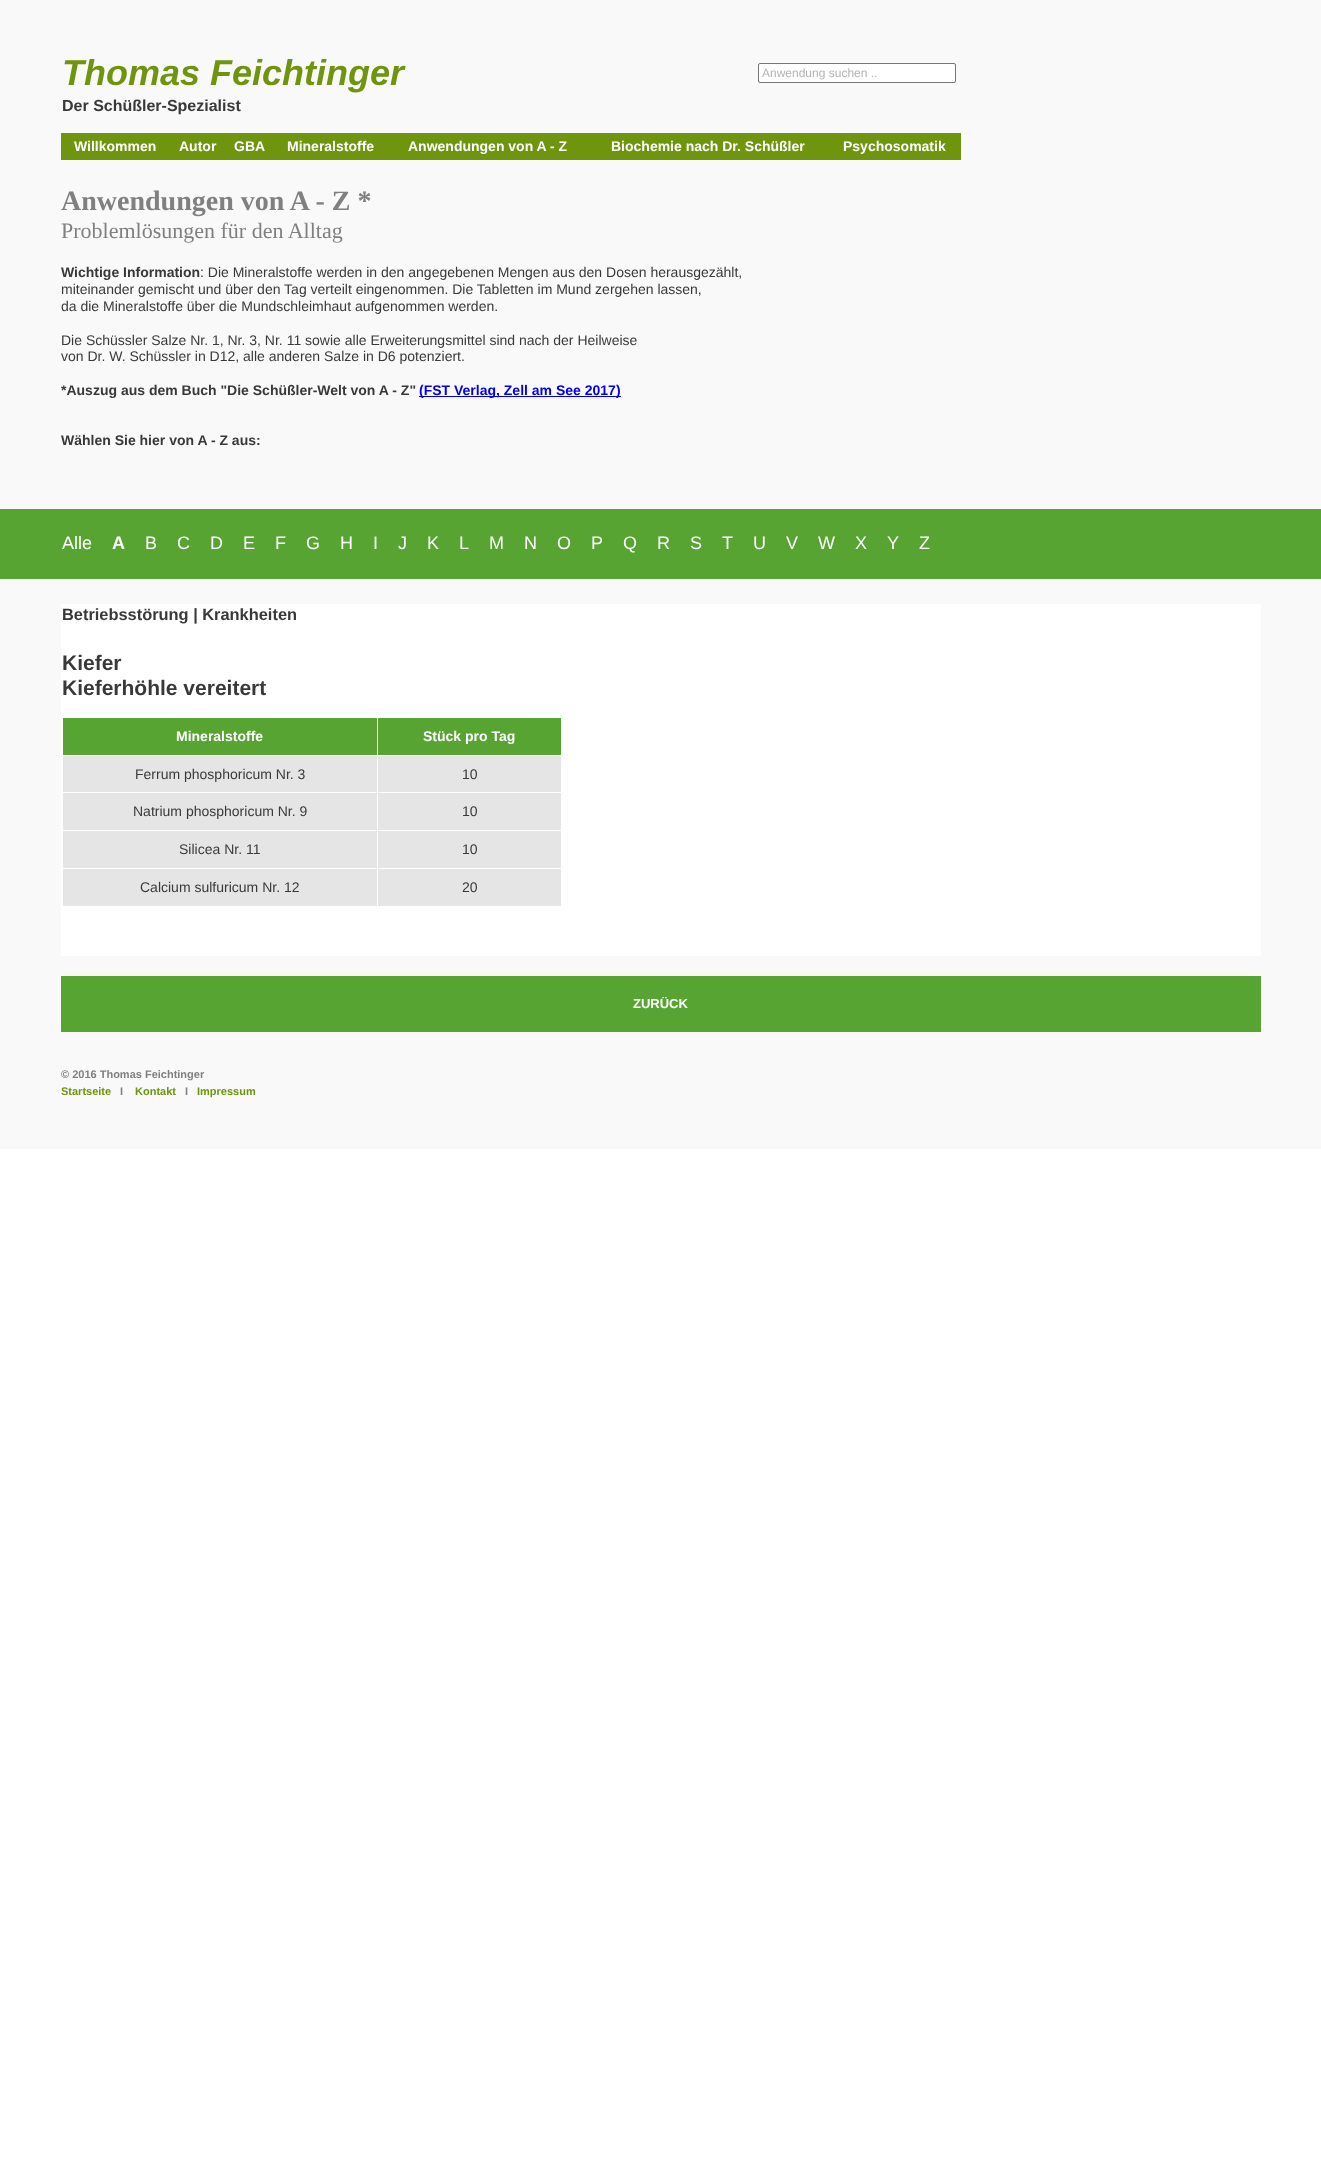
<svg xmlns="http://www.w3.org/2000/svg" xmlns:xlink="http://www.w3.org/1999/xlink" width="1321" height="2174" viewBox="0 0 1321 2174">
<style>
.cls-1{font:italic bold 36px Liberation Sans;fill:#6f940e}
.cls-2{font:12px Liberation Sans;fill:#b3b3b3}
.cls-3{font:bold 16px Liberation Sans;fill:#3a3939}
.cls-4{font:bold 14px Liberation Sans;fill:#ffffff}
.cls-5{font:bold 28px Liberation Serif;fill:#808080}
.cls-6{font:22px Liberation Serif;fill:#808080}
.cls-7{font:bold 14px Liberation Sans;fill:#3a3939}
.cls-8{font:14px Liberation Sans;fill:#3a3939}
.cls-9{font:bold 14px Liberation Sans;fill:#0000ee}
.cls-10{font:18px Liberation Sans;fill:#ffffff}
.cls-11{font:bold 18px Liberation Sans;fill:#ffffff}
.cls-12{font:bold 16.4px Liberation Sans;fill:#3a3939}
.cls-13{font:bold 21px Liberation Sans;fill:#3a3939}
.cls-14{font:bold 13px Liberation Sans;fill:#ffffff}
.cls-15{font:bold 11px Liberation Sans;fill:#808080}
.cls-16{font:bold 11px Liberation Sans;fill:#6f940e}
</style>
<rect width="100%" height="100%" fill="#ffffff"/>
<rect fill="#f9f9f9" x="0" y="0" width="1321" height="509"/>
<rect fill="#ffffff" stroke="#767676" x="758.5" y="63.5" width="197" height="19" rx="1.5"/>
<rect fill="#6f940e" x="61" y="133" width="900" height="27"/>
<rect fill="#0000ee" x="419" y="396" width="202" height="1"/>
<rect fill="#f9f9f9" x="0" y="579" width="1321" height="570"/>
<rect fill="#57a432" x="0" y="509" width="1321" height="70"/>
<rect fill="#ffffff" x="61" y="604" width="1200" height="352"/>
<rect fill="#57a432" x="63" y="718" width="314" height="37"/>
<rect fill="#57a432" x="378" y="718" width="183" height="37"/>
<rect fill="#e5e5e5" x="63" y="756" width="314" height="36"/>
<rect fill="#e5e5e5" x="378" y="756" width="183" height="36"/>
<rect fill="#e5e5e5" x="63" y="793" width="314" height="37"/>
<rect fill="#e5e5e5" x="378" y="793" width="183" height="37"/>
<rect fill="#e5e5e5" x="63" y="831" width="314" height="37"/>
<rect fill="#e5e5e5" x="378" y="831" width="183" height="37"/>
<rect fill="#e5e5e5" x="63" y="869" width="314" height="37"/>
<rect fill="#e5e5e5" x="378" y="869" width="183" height="37"/>
<rect fill="#57a432" x="61" y="976" width="1200" height="56"/>
<text class="cls-1" x="62" y="85">Thomas Feichtinger</text>
<text class="cls-2" x="762" y="77">Anwendung suchen ..</text>
<text class="cls-3" x="62" y="111">Der Schüßler-Spezialist</text>
<text class="cls-4" x="74" y="151">Willkommen</text>
<text class="cls-4" x="179" y="151">Autor</text>
<text class="cls-4" x="234" y="151">GBA</text>
<text class="cls-4" x="287" y="151">Mineralstoffe</text>
<text class="cls-4" x="408" y="151">Anwendungen von A - Z</text>
<text class="cls-4" x="611" y="151">Biochemie nach Dr. Schüßler</text>
<text class="cls-4" x="843" y="151">Psychosomatik</text>
<text class="cls-5" x="61" y="210">Anwendungen von A - Z *</text>
<text class="cls-6" x="61" y="238">Problemlösungen für den Alltag</text>
<text class="cls-7" x="61" y="277">Wichtige Information</text>
<text class="cls-8" x="200" y="277">: Die Mineralstoffe werden in den angegebenen Mengen aus den Dosen herausgezählt,</text>
<text class="cls-8"><tspan x="61" y="294">miteinander gemischt und über den Tag verteilt eingenommen. Die Tabletten im Mund zergehen lassen,</tspan><tspan x="61" y="311">da die Mineralstoffe über die Mundschleimhaut aufgenommen werden.</tspan></text>
<text class="cls-8"><tspan x="61" y="345">Die Schüssler Salze Nr. 1, Nr. 3, Nr. 11 sowie alle Erweiterungsmittel sind nach der Heilweise</tspan><tspan x="61" y="361">von Dr. W. Schüssler in D12, alle anderen Salze in D6 potenziert.</tspan></text>
<text class="cls-7" x="61" y="395">*Auszug aus dem Buch "Die Schüßler-Welt von A - Z"</text>
<text class="cls-9" x="419" y="395">(FST Verlag, Zell am See 2017)</text>
<text class="cls-7" x="61" y="445">Wählen Sie hier von A - Z aus:</text>
<text class="cls-10" x="62" y="549">Alle</text>
<text class="cls-11" x="112" y="549">A</text>
<text class="cls-10" x="145" y="549">B</text>
<text class="cls-10" x="177" y="549">C</text>
<text class="cls-10" x="210" y="549">D</text>
<text class="cls-10" x="243" y="549">E</text>
<text class="cls-10" x="275" y="549">F</text>
<text class="cls-10" x="306" y="549">G</text>
<text class="cls-10" x="340" y="549">H</text>
<text class="cls-10" x="373" y="549">I</text>
<text class="cls-10" x="398" y="549">J</text>
<text class="cls-10" x="427" y="549">K</text>
<text class="cls-10" x="459" y="549">L</text>
<text class="cls-10" x="489" y="549">M</text>
<text class="cls-10" x="524" y="549">N</text>
<text class="cls-10" x="557" y="549">O</text>
<text class="cls-10" x="591" y="549">P</text>
<text class="cls-10" x="623" y="549">Q</text>
<text class="cls-10" x="657" y="549">R</text>
<text class="cls-10" x="690" y="549">S</text>
<text class="cls-10" x="722" y="549">T</text>
<text class="cls-10" x="753" y="549">U</text>
<text class="cls-10" x="786" y="549">V</text>
<text class="cls-10" x="818" y="549">W</text>
<text class="cls-10" x="855" y="549">X</text>
<text class="cls-10" x="887" y="549">Y</text>
<text class="cls-10" x="919" y="549">Z</text>
<text class="cls-12" x="62" y="620">Betriebsstörung | Krankheiten</text>
<text class="cls-13"><tspan x="62" y="670">Kiefer</tspan><tspan x="62" y="695">Kieferhöhle vereitert</tspan></text>
<text class="cls-4" x="176" y="741">Mineralstoffe</text>
<text class="cls-4" x="423" y="741">Stück pro Tag</text>
<text class="cls-8" x="135" y="779">Ferrum phosphoricum Nr. 3</text>
<text class="cls-8" x="462" y="779">10</text>
<text class="cls-8" x="133" y="816">Natrium phosphoricum Nr. 9</text>
<text class="cls-8" x="462" y="816">10</text>
<text class="cls-8" x="179" y="854">Silicea Nr. 11</text>
<text class="cls-8" x="462" y="854">10</text>
<text class="cls-8" x="140" y="892">Calcium sulfuricum Nr. 12</text>
<text class="cls-8" x="462" y="892">20</text>
<text class="cls-14" x="633" y="1008">ZURÜCK</text>
<text class="cls-15" x="61" y="1078">© 2016 Thomas Feichtinger</text>
<text class="cls-16" x="61" y="1095">Startseite</text>
<text class="cls-15" x="120" y="1095">I</text>
<text class="cls-16" x="135" y="1095">Kontakt</text>
<text class="cls-15" x="185" y="1095">I</text>
<text class="cls-16" x="197" y="1095">Impressum</text>
</svg>
